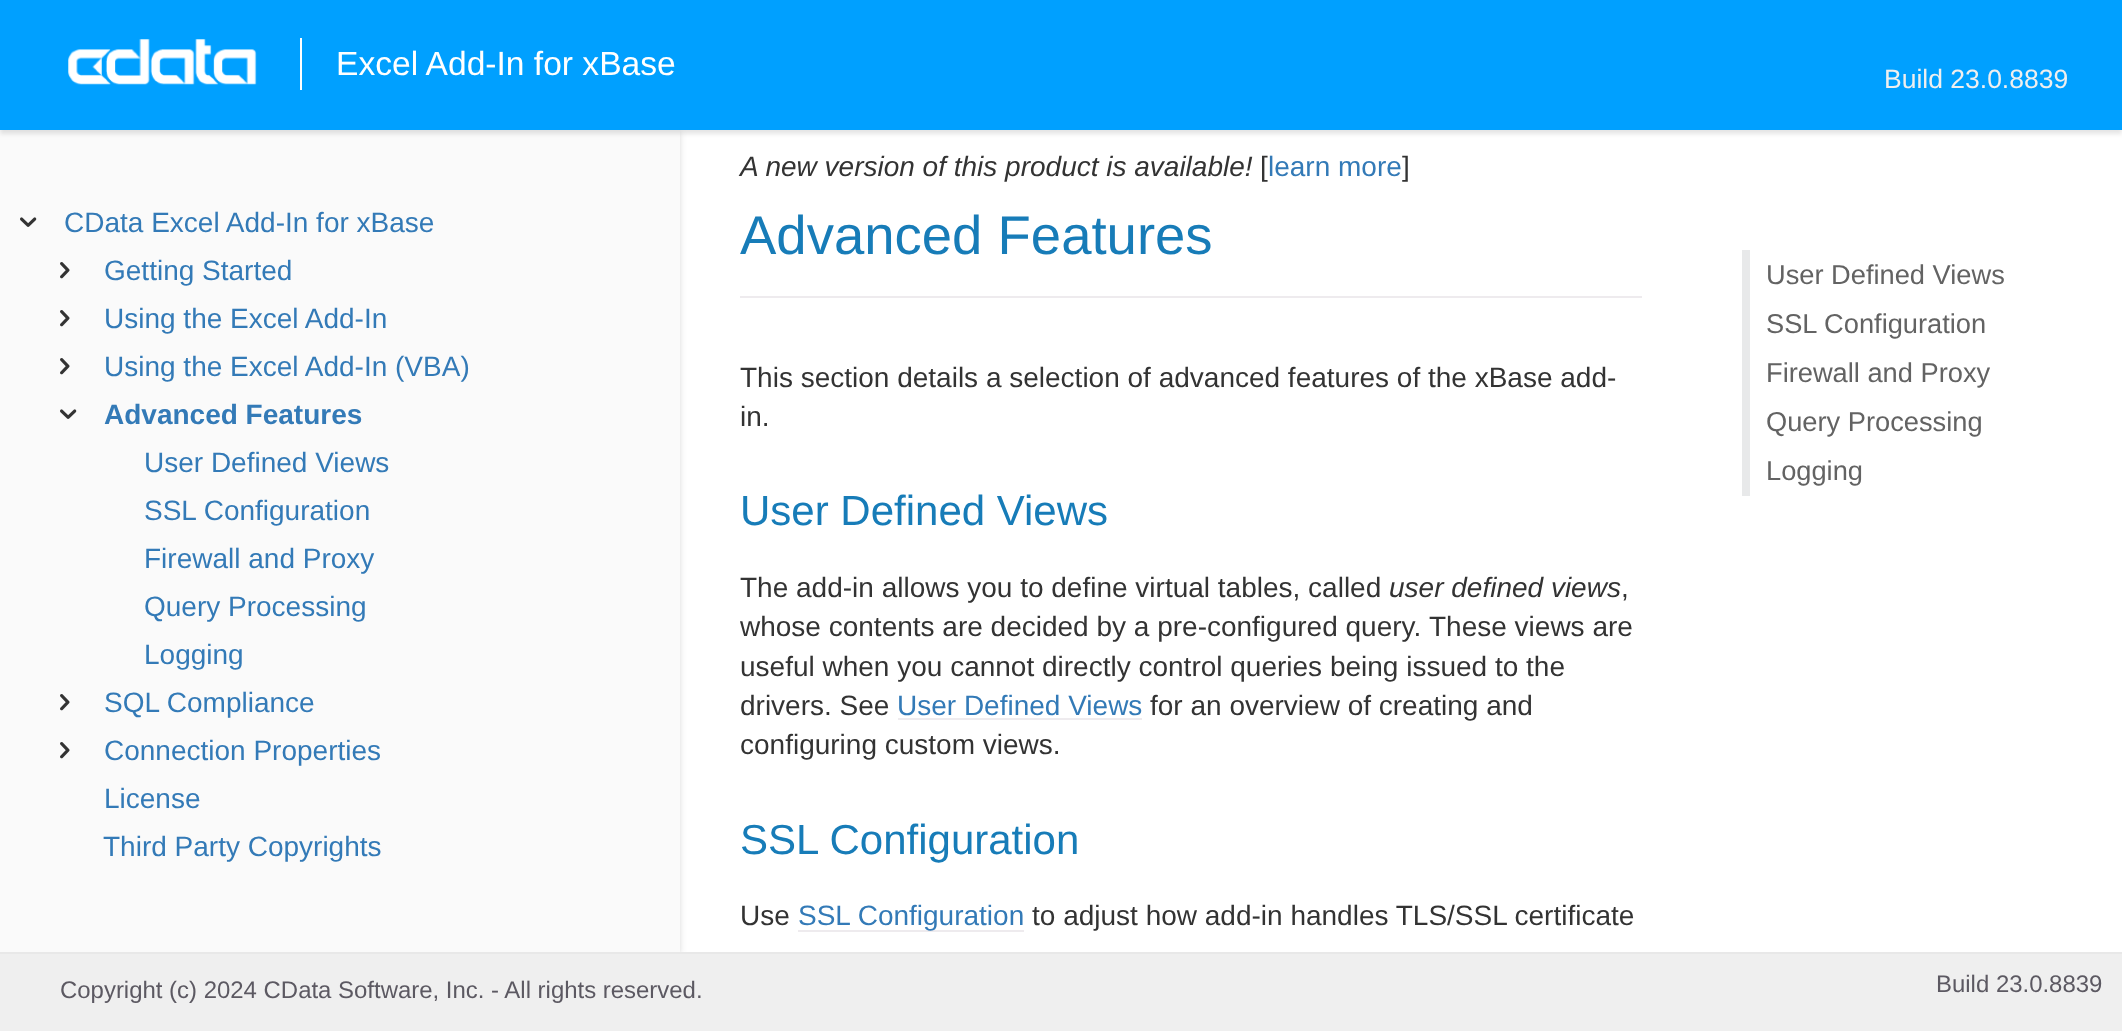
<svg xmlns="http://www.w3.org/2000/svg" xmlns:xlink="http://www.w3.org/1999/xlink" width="2122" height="1031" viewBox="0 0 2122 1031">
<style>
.cls-1{font:33.6px Liberation Sans;fill:#ffffff}
.cls-2{font:26.5px Liberation Sans;fill:#efefef}
.cls-3{font:28px Liberation Sans;fill:#337ab7}
.cls-4{font:bold 28px Liberation Sans;fill:#337ab7}
.cls-5{font:italic 28px Liberation Sans;fill:#333333}
.cls-6{font:28px Liberation Sans;fill:#333333}
.cls-7{font:54.5px Liberation Sans;fill:#177cb8}
.cls-8{font:42px Liberation Sans;fill:#177cb8}
.cls-9{font:27.25px Liberation Sans;fill:#636363}
.cls-10{font:23.95px Liberation Sans;fill:#5c5962}
</style>
<rect width="100%" height="100%" fill="#ffffff"/>
<rect fill="#000000" fill-opacity="0.15" filter="blur(3px)" x="0" y="132" width="680" height="822"/>
<rect fill="#fafafa" x="0" y="130" width="680" height="822"/>
<rect fill="#000000" fill-opacity="0.1" filter="blur(2px)" x="0" y="4" width="2122" height="130"/>
<rect fill="#00a0ff" x="0" y="0" width="2122" height="130"/>
<image xlink:href="image0.png" x="68" y="39" width="189" height="46"/>
<rect fill="#ffffff" x="300" y="38" width="2" height="52"/>
<image xlink:href="image1.png" x="20" y="217" width="17" height="10"/>
<image xlink:href="image2.png" x="60" y="262" width="10" height="17"/>
<image xlink:href="image2.png" x="60" y="310" width="10" height="17"/>
<image xlink:href="image2.png" x="60" y="358" width="10" height="17"/>
<image xlink:href="image1.png" x="60" y="409" width="17" height="10"/>
<image xlink:href="image2.png" x="60" y="694" width="10" height="17"/>
<image xlink:href="image2.png" x="60" y="742" width="10" height="17"/>
<rect fill="#eeebee" x="740" y="296" width="902" height="2"/>
<rect fill="#eeebee" x="898" y="718" width="244" height="2"/>
<rect fill="#eeebee" x="798" y="930" width="226" height="2"/>
<rect fill="#e8e9ea" x="1742" y="250" width="8" height="246"/>
<rect fill="#efefef" x="0" y="954" width="2122" height="77"/>
<rect fill="#e8e8e8" x="0" y="952" width="2122" height="2"/>
<text class="cls-1" x="336" y="75">Excel Add-In for xBase</text>
<text class="cls-2" x="1884" y="88">Build 23.0.8839</text>
<text class="cls-3" x="64" y="232">CData Excel Add-In for xBase</text>
<text class="cls-3"><tspan x="104" y="280">Getting Started</tspan><tspan x="104" y="328">Using the Excel Add-In</tspan><tspan x="104" y="376">Using the Excel Add-In (VBA)</tspan></text>
<text class="cls-4" x="104" y="424">Advanced Features</text>
<text class="cls-3"><tspan x="144" y="472">User Defined Views</tspan><tspan x="144" y="520">SSL Configuration</tspan><tspan x="144" y="568">Firewall and Proxy</tspan><tspan x="144" y="616">Query Processing</tspan><tspan x="144" y="664">Logging</tspan></text>
<text class="cls-3"><tspan x="104" y="712">SQL Compliance</tspan><tspan x="104" y="760">Connection Properties</tspan><tspan x="104" y="808">License</tspan></text>
<text class="cls-3" x="103" y="856">Third Party Copyrights</text>
<text class="cls-5" x="740" y="176">A new version of this product is available!</text>
<text class="cls-6" x="1260" y="176">[</text>
<text class="cls-3" x="1268" y="176">learn more</text>
<text class="cls-6" x="1402" y="176">]</text>
<text class="cls-7" x="740" y="254">Advanced Features</text>
<text class="cls-6"><tspan x="740" y="387">This section details a selection of advanced features of the xBase add-</tspan><tspan x="740" y="426">in.</tspan></text>
<text class="cls-8" x="740" y="525">User Defined Views</text>
<text class="cls-6" x="740" y="597">The add-in allows you to define virtual tables, called</text>
<text class="cls-5" x="1389" y="597">user defined views</text>
<text class="cls-6" x="1621" y="597">,</text>
<text class="cls-6" x="740" y="636">whose contents are decided by a pre-configured query.</text>
<text class="cls-6" x="1429" y="636">These views are</text>
<text class="cls-6"><tspan x="740" y="676">useful when you cannot directly control queries being issued to the</tspan><tspan x="740" y="715">drivers. See</tspan></text>
<text class="cls-3" x="897" y="715">User Defined Views</text>
<text class="cls-6" x="1150" y="715">for an overview of creating and</text>
<text class="cls-6" x="740" y="754">configuring custom views.</text>
<text class="cls-8" x="740" y="854">SSL Configuration</text>
<text class="cls-6" x="740" y="925">Use</text>
<text class="cls-3" x="798" y="925">SSL Configuration</text>
<text class="cls-6" x="1032" y="925">to adjust how add-in handles TLS/SSL certificate</text>
<text class="cls-9"><tspan x="1766" y="284">User Defined Views</tspan><tspan x="1766" y="333">SSL Configuration</tspan><tspan x="1766" y="382">Firewall and Proxy</tspan><tspan x="1766" y="431">Query Processing</tspan><tspan x="1766" y="480">Logging</tspan></text>
<text class="cls-10" x="60" y="998">Copyright (c) 2024 CData Software, Inc. - All rights reserved.</text>
<text class="cls-10" x="1936" y="992">Build 23.0.8839</text>
</svg>
